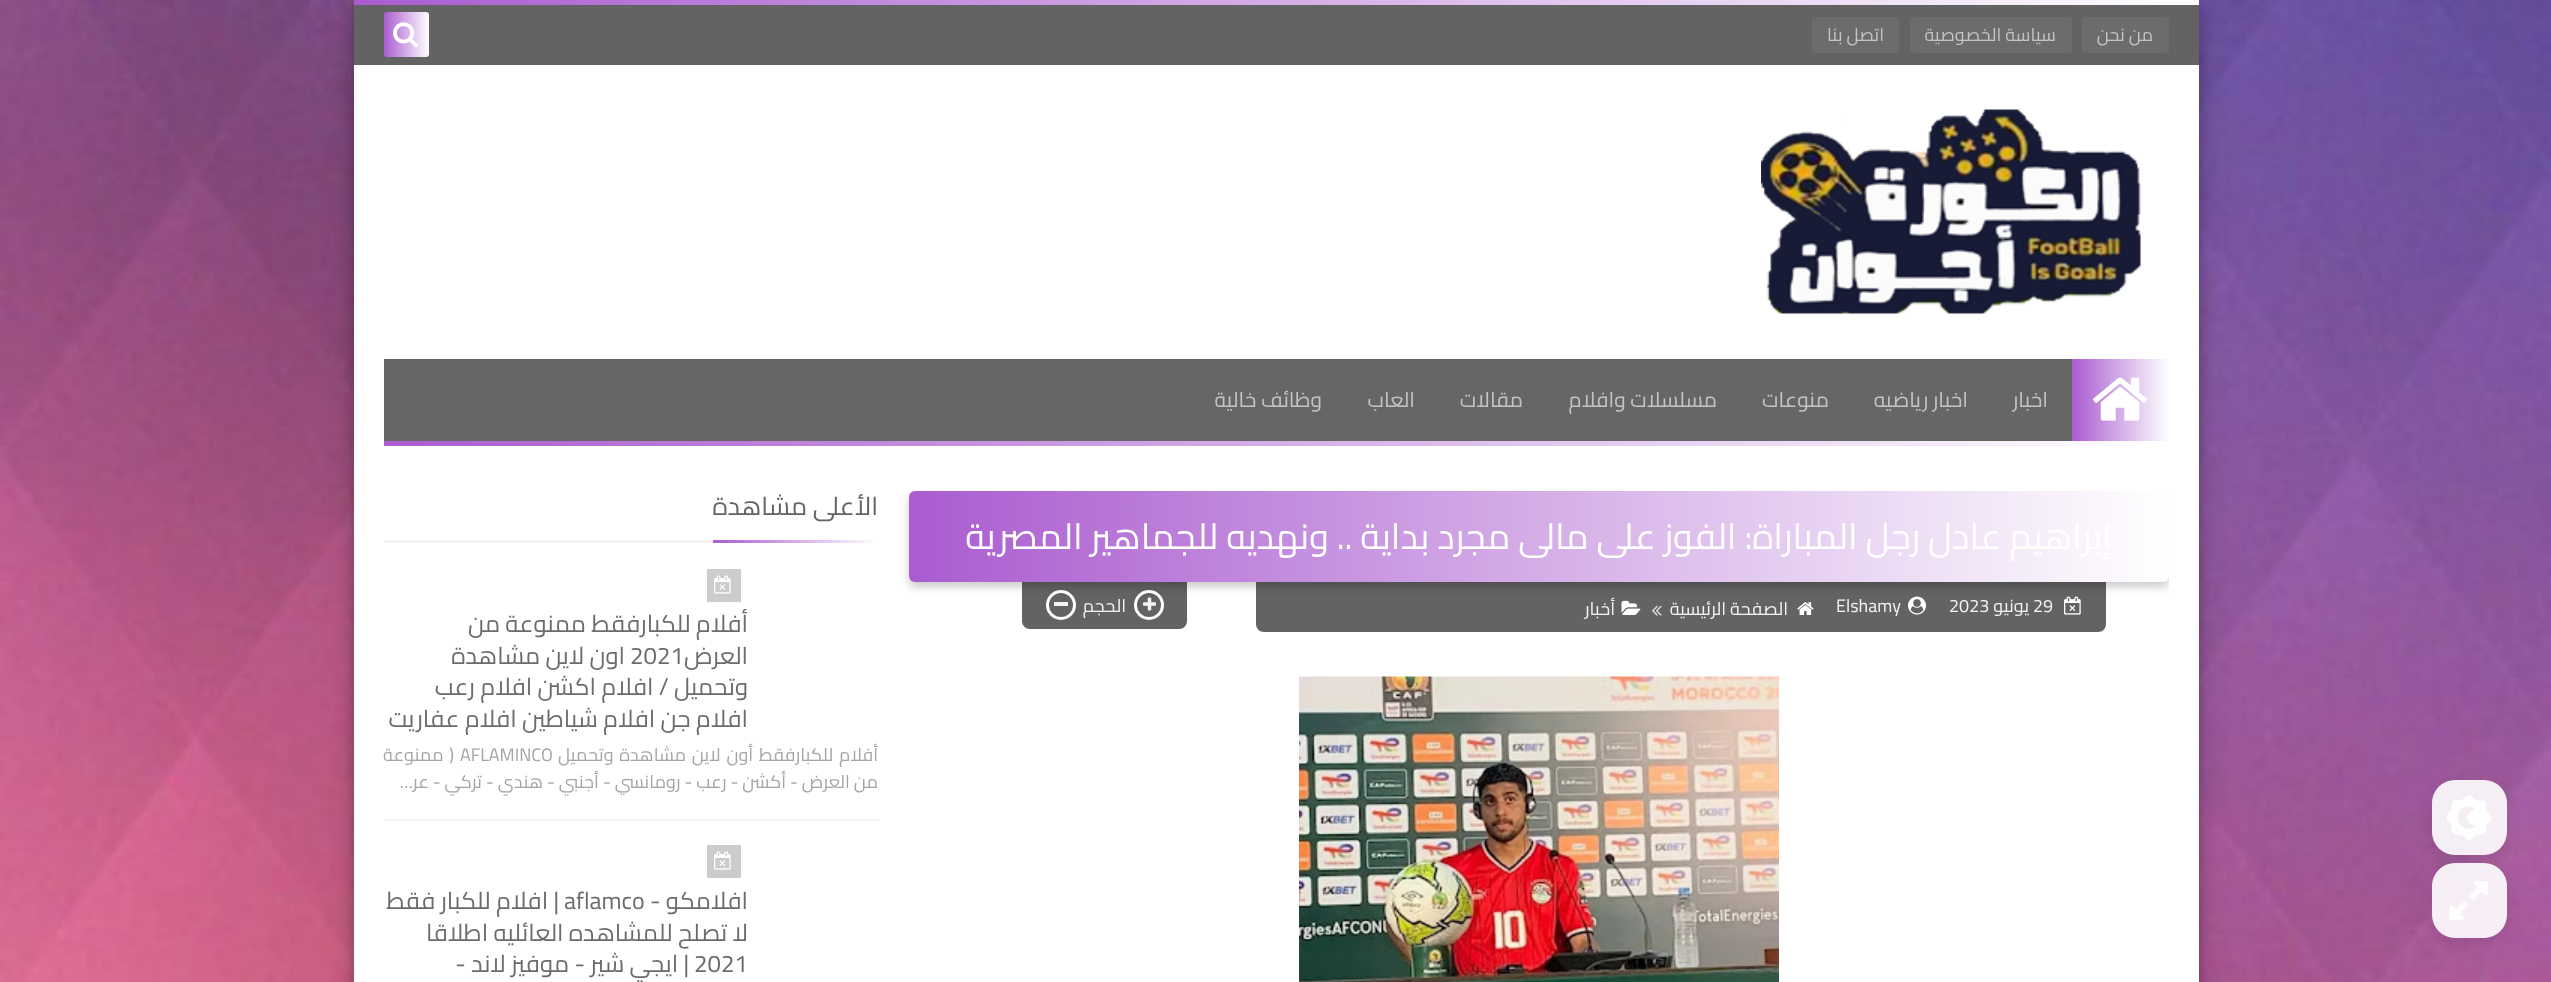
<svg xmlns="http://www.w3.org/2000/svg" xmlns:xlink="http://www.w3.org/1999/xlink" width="2551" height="982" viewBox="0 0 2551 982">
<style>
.cls-1{font:18px Cairo;direction:rtl;fill:#c4c4c4}
.cls-2{font:21px Cairo;direction:rtl;fill:#c4c4c4}
.cls-3{font:36px Cairo;direction:rtl;fill:#ffffff}
.cls-4{font:18px Cairo;fill:#f3f3f3}
.cls-5{font:18px Cairo;direction:rtl;fill:#f3f3f3}
.cls-6{font:25.5px Cairo;direction:rtl;fill:#636363}
.cls-7{font:24px Cairo;direction:rtl;fill:#6c6c6c}
.cls-8{font:24px Cairo;fill:#6c6c6c}
.cls-9{font:18px Cairo;direction:rtl;fill:#a5a5a5}
.cls-10{font:18px Cairo;fill:#a5a5a5}
</style>
<defs>
<clipPath id="clip1"><path d="M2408 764H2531V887H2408ZM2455 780H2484C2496.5 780 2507 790.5 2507 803V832C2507 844.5 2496.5 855 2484 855H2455C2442.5 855 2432 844.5 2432 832V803C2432 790.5 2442.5 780 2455 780Z" clip-rule="evenodd"/></clipPath>
<clipPath id="clip2"><path d="M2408 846H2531V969H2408ZM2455 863H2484C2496.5 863 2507 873.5 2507 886V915C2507 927.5 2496.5 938 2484 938H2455C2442.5 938 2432 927.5 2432 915V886C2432 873.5 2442.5 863 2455 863Z" clip-rule="evenodd"/></clipPath>
<linearGradient id="g1" gradientUnits="userSpaceOnUse" x1="2199" y1="2.3" x2="354" y2="2.2"><stop offset="0" stop-color="#ffffff"/><stop offset="1" stop-color="#aa5cd0"/></linearGradient>
<linearGradient id="g2" gradientUnits="userSpaceOnUse" x1="429" y1="35" x2="384" y2="35"><stop offset="0" stop-color="#ffffff"/><stop offset="1" stop-color="#aa5cd0"/></linearGradient>
<linearGradient id="g3" gradientUnits="userSpaceOnUse" x1="2169" y1="400" x2="2072" y2="400"><stop offset="0" stop-color="#ffffff"/><stop offset="1" stop-color="#aa5cd0"/></linearGradient>
<linearGradient id="g4" gradientUnits="userSpaceOnUse" x1="2169" y1="443" x2="384" y2="443"><stop offset="0" stop-color="#ffffff"/><stop offset="1" stop-color="#aa5cd0"/></linearGradient>
<clipPath id="clip3"><rect x="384" y="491" width="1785" height="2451"/></clipPath>
<linearGradient id="g5" gradientUnits="userSpaceOnUse" x1="2169" y1="536" x2="909" y2="536"><stop offset="0" stop-color="#ffffff"/><stop offset="1" stop-color="#aa5cd0"/></linearGradient>
<linearGradient id="g6" gradientUnits="userSpaceOnUse" x1="879" y1="542" x2="713" y2="542"><stop offset="0" stop-color="#ffffff"/><stop offset="1" stop-color="#aa5cd0"/></linearGradient>
</defs>
<rect width="100%" height="100%" fill="#ffffff"/>
<image xlink:href="image0.png" x="0" y="0" width="2551" height="982"/>
<g clip-path="url(#clip1)">
<rect fill="#000000" fill-opacity="0.09" filter="blur(7.5px)" x="2432" y="788" width="75" height="75" rx="23"/>
</g>
<rect fill="#ffffff" fill-opacity="0.9" x="2432" y="780" width="75" height="75" rx="23"/>
<image xlink:href="image1.png" x="2447" y="795" width="45" height="45"/>
<g clip-path="url(#clip2)">
<rect fill="#000000" fill-opacity="0.09" filter="blur(7.5px)" x="2432" y="870" width="75" height="75" rx="23"/>
</g>
<rect fill="#ffffff" fill-opacity="0.9" x="2432" y="863" width="75" height="75" rx="23"/>
<image xlink:href="image2.png" x="2449" y="881" width="39" height="39"/>
<rect fill="#000000" fill-opacity="0.19" filter="blur(15px)" x="354" y="9" width="1845" height="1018"/>
<rect fill="#000000" fill-opacity="0.2" filter="blur(6px)" x="354" y="6" width="1845" height="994"/>
<rect fill="#ffffff" x="354" y="65" width="1845" height="917"/>
<rect fill="url(#g1)" x="354" y="0" width="1845" height="5"/>
<rect fill="#636363" x="354" y="5" width="1845" height="60"/>
<rect fill="#6c6c6c" x="2082" y="17" width="87" height="36" rx="3"/>
<rect fill="#6c6c6c" x="1910" y="17" width="162" height="36" rx="3"/>
<rect fill="#6c6c6c" x="1812" y="17" width="87" height="36" rx="3"/>
<rect fill="url(#g2)" x="384" y="12" width="45" height="45" rx="3"/>
<image xlink:href="image3.png" x="393" y="22" width="25" height="26"/>
<image xlink:href="image4.png" x="1761" y="109" width="380" height="205"/>
<rect fill="#666666" x="384" y="359" width="1688" height="82"/>
<rect fill="url(#g3)" x="2072" y="359" width="96" height="82"/>
<image xlink:href="image5.png" x="2093" y="377" width="54" height="44"/>
<rect fill="url(#g4)" x="384" y="441" width="1758" height="5"/>
<path fill="#636363" d="M1256 582H2106V624C2106 628.5 2102.5 632 2098 632H1264C1259.5 632 1256 628.5 1256 624Z"/>
<image xlink:href="image6.png" x="2064" y="596" width="17" height="19"/>
<image xlink:href="image7.png" x="1908" y="596" width="18" height="19"/>
<path fill="#636363" d="M1022 582H1187V621C1187 625.5 1183.5 629 1179 629H1030C1025.5 629 1022 625.5 1022 621Z"/>
<circle fill="none" stroke="#ffffff" stroke-width="3" cx="1149" cy="605" r="13.5"/>
<image xlink:href="image11.png" x="1143" y="597" width="13" height="14"/>
<circle fill="none" stroke="#ffffff" stroke-width="3" cx="1061" cy="605" r="13.5"/>
<g clip-path="url(#clip3)">
<rect fill="#000000" fill-opacity="0.2" filter="blur(4px)" x="909" y="495" width="1260" height="92" rx="6"/>
</g>
<rect fill="url(#g5)" x="909" y="491" width="1260" height="91" rx="6"/>
<image xlink:href="image8.png" x="1797" y="602" width="17" height="13"/>
<image xlink:href="image9.png" x="1652" y="605" width="10" height="11"/>
<image xlink:href="image10.png" x="1621" y="600" width="20" height="15"/>
<rect fill="#f3f3f3" x="1054" y="602" width="14" height="4"/>
<image xlink:href="image12.png" x="1299" y="676" width="480" height="306"/>
<rect fill="#f3f3f3" x="384" y="540" width="329" height="3"/>
<rect fill="url(#g6)" x="713" y="540" width="166" height="3"/>
<rect fill="#f3f3f3" x="384" y="819" width="495" height="2"/>
<rect fill="#cccccc" x="707" y="569" width="34" height="33"/>
<image xlink:href="image13.png" x="714" y="575" width="17" height="19"/>
<rect fill="#cccccc" x="707" y="845" width="34" height="33"/>
<image xlink:href="image13.png" x="714" y="851" width="17" height="19"/>
<text class="cls-1" x="2153" y="41">من نحن</text>
<text class="cls-1" x="2056" y="41">سياسة الخصوصية</text>
<text class="cls-1" x="1884" y="41">اتصل بنا</text>
<text class="cls-2" x="2048" y="407">اخبار</text>
<text class="cls-2" x="1968" y="407">اخبار رياضيه</text>
<text class="cls-2" x="1829" y="407">منوعات</text>
<text class="cls-2" x="1717" y="407">مسلسلات وافلام</text>
<text class="cls-2" x="1523" y="407">مقالات</text>
<text class="cls-2" x="1415" y="407">العاب</text>
<text class="cls-2" x="1322" y="407">وظائف خالية</text>
<text class="cls-3" x="2112" y="549">إبراهيم عادل رجل المباراة: الفوز على مالى مجرد بداية .. ونهديه للجماهير المصرية</text>
<text class="cls-4" x="2033" y="612">29</text>
<text class="cls-5" x="2029" y="612">يونيو</text>
<text class="cls-4" x="1949" y="612">2023</text>
<text class="cls-4" x="1836" y="612">Elshamy</text>
<text class="cls-5" x="1788" y="615">الصفحة الرئيسية</text>
<text class="cls-5" x="1615" y="615">أخبار</text>
<text class="cls-5" x="1126" y="612">الحجم</text>
<text class="cls-6" x="878" y="515">الأعلى مشاهدة</text>
<text class="cls-7" x="748" y="632">أفلام للكبارفقط</text>
<text class="cls-7" x="586" y="632">ممنوعة من</text>
<text class="cls-7" x="748" y="664">العرض</text>
<text class="cls-8" x="630" y="664">2021</text>
<text class="cls-7" x="625" y="664">اون لاين مشاهدة</text>
<text class="cls-7"><tspan x="748" y="695">وتحميل / افلام اكشن افلام رعب</tspan><tspan x="748" y="727">افلام جن افلام شياطين افلام عفاريت</tspan></text>
<text class="cls-9" x="878" y="761" word-spacing="1.75">أفلام للكبارفقط أون لاين مشاهدة وتحميل</text>
<text class="cls-10" x="460" y="761">AFLAMINCO</text>
<text class="cls-9" x="454" y="761" word-spacing="1.75">( ممنوعة</text>
<text class="cls-9" x="878" y="788">من العرض - أكشن - رعب - رومانسي - أجنبي - هندي - تركي - عر…</text>
<text class="cls-7" x="748" y="909">افلامكو -</text>
<text class="cls-8" x="564" y="909">aflamco</text>
<text class="cls-7" x="559" y="909">| افلام للكبار فقط</text>
<text class="cls-7" x="748" y="941">لا تصلح للمشاهده العائليه اطلاقا</text>
<text class="cls-8" x="694" y="972">2021</text>
<text class="cls-7" x="689" y="972">| ايجي شير - موفيز لاند -</text>
</svg>
